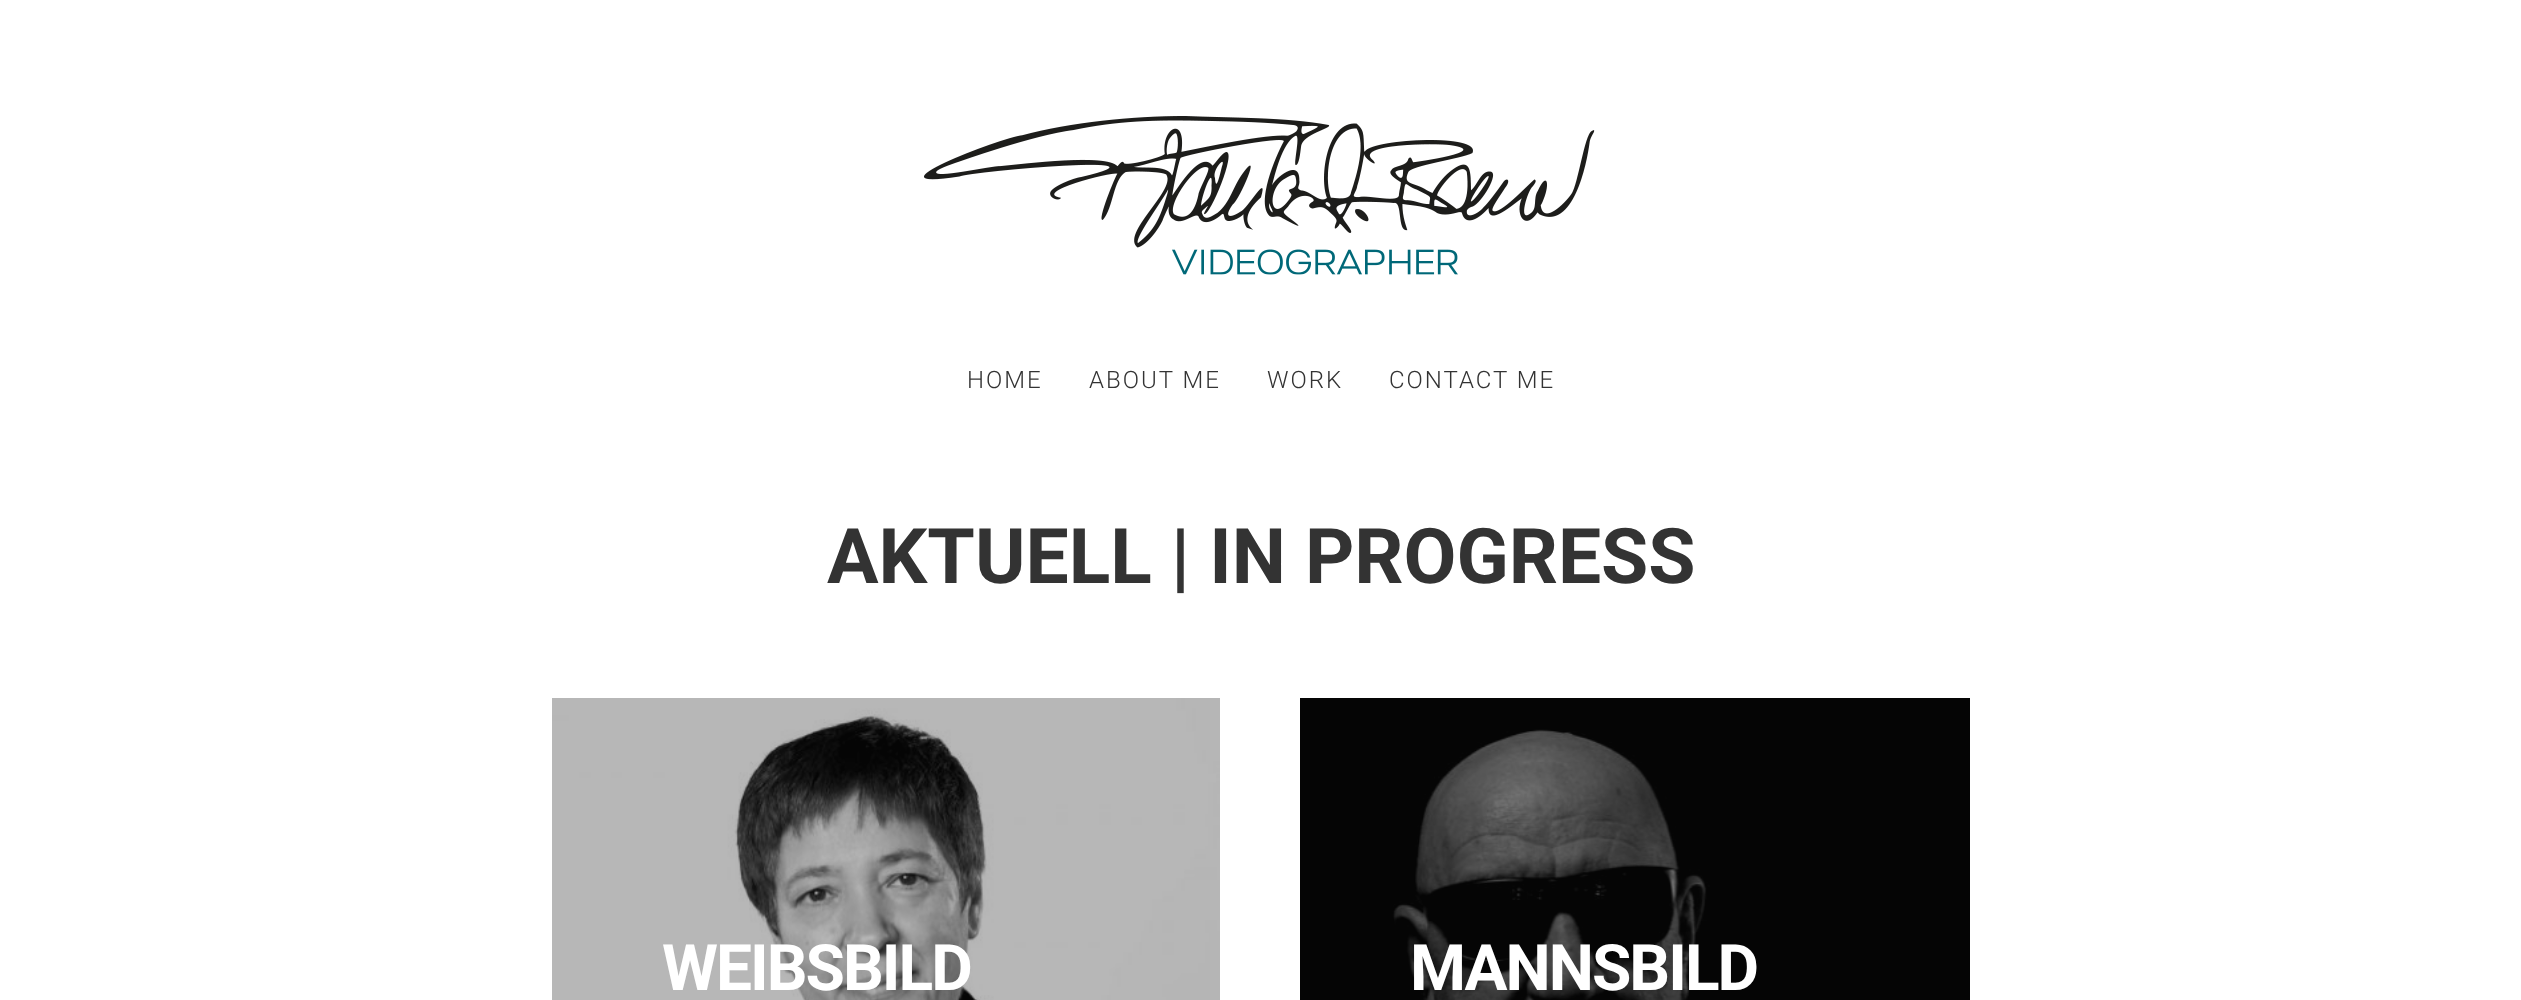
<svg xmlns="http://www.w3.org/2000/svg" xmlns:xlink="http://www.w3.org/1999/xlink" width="2521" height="1000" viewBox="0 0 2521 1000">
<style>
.cls-1{font:300 24px Roboto;letter-spacing:2px;fill:#333333}
.cls-2{font:bold 76.75px Roboto;fill:#333333}
.cls-3{font:bold 64px Roboto;letter-spacing:-2px;fill:#ffffff}
</style>
<rect width="100%" height="100%" fill="#ffffff"/>
<image xlink:href="image0.png" x="924" y="116" width="671" height="159"/>
<rect fill="#111111" x="552" y="698" width="668" height="302"/>
<image xlink:href="image1.png" x="552" y="698" width="668" height="302"/>
<rect fill="#111111" x="1300" y="698" width="670" height="302"/>
<image xlink:href="image2.png" x="1300" y="698" width="670" height="302"/>
<text class="cls-1" x="967" y="388">HOME</text>
<text class="cls-1" x="1089" y="388">ABOUT ME</text>
<text class="cls-1" x="1267" y="388">WORK</text>
<text class="cls-1" x="1389" y="388">CONTACT ME</text>
<text class="cls-2" x="827" y="583">AKTUELL | IN PROGRESS</text>
<text class="cls-3" x="662" y="990">WEIBSBILD</text>
<text class="cls-3" x="1410" y="990">MANNSBILD</text>
</svg>
